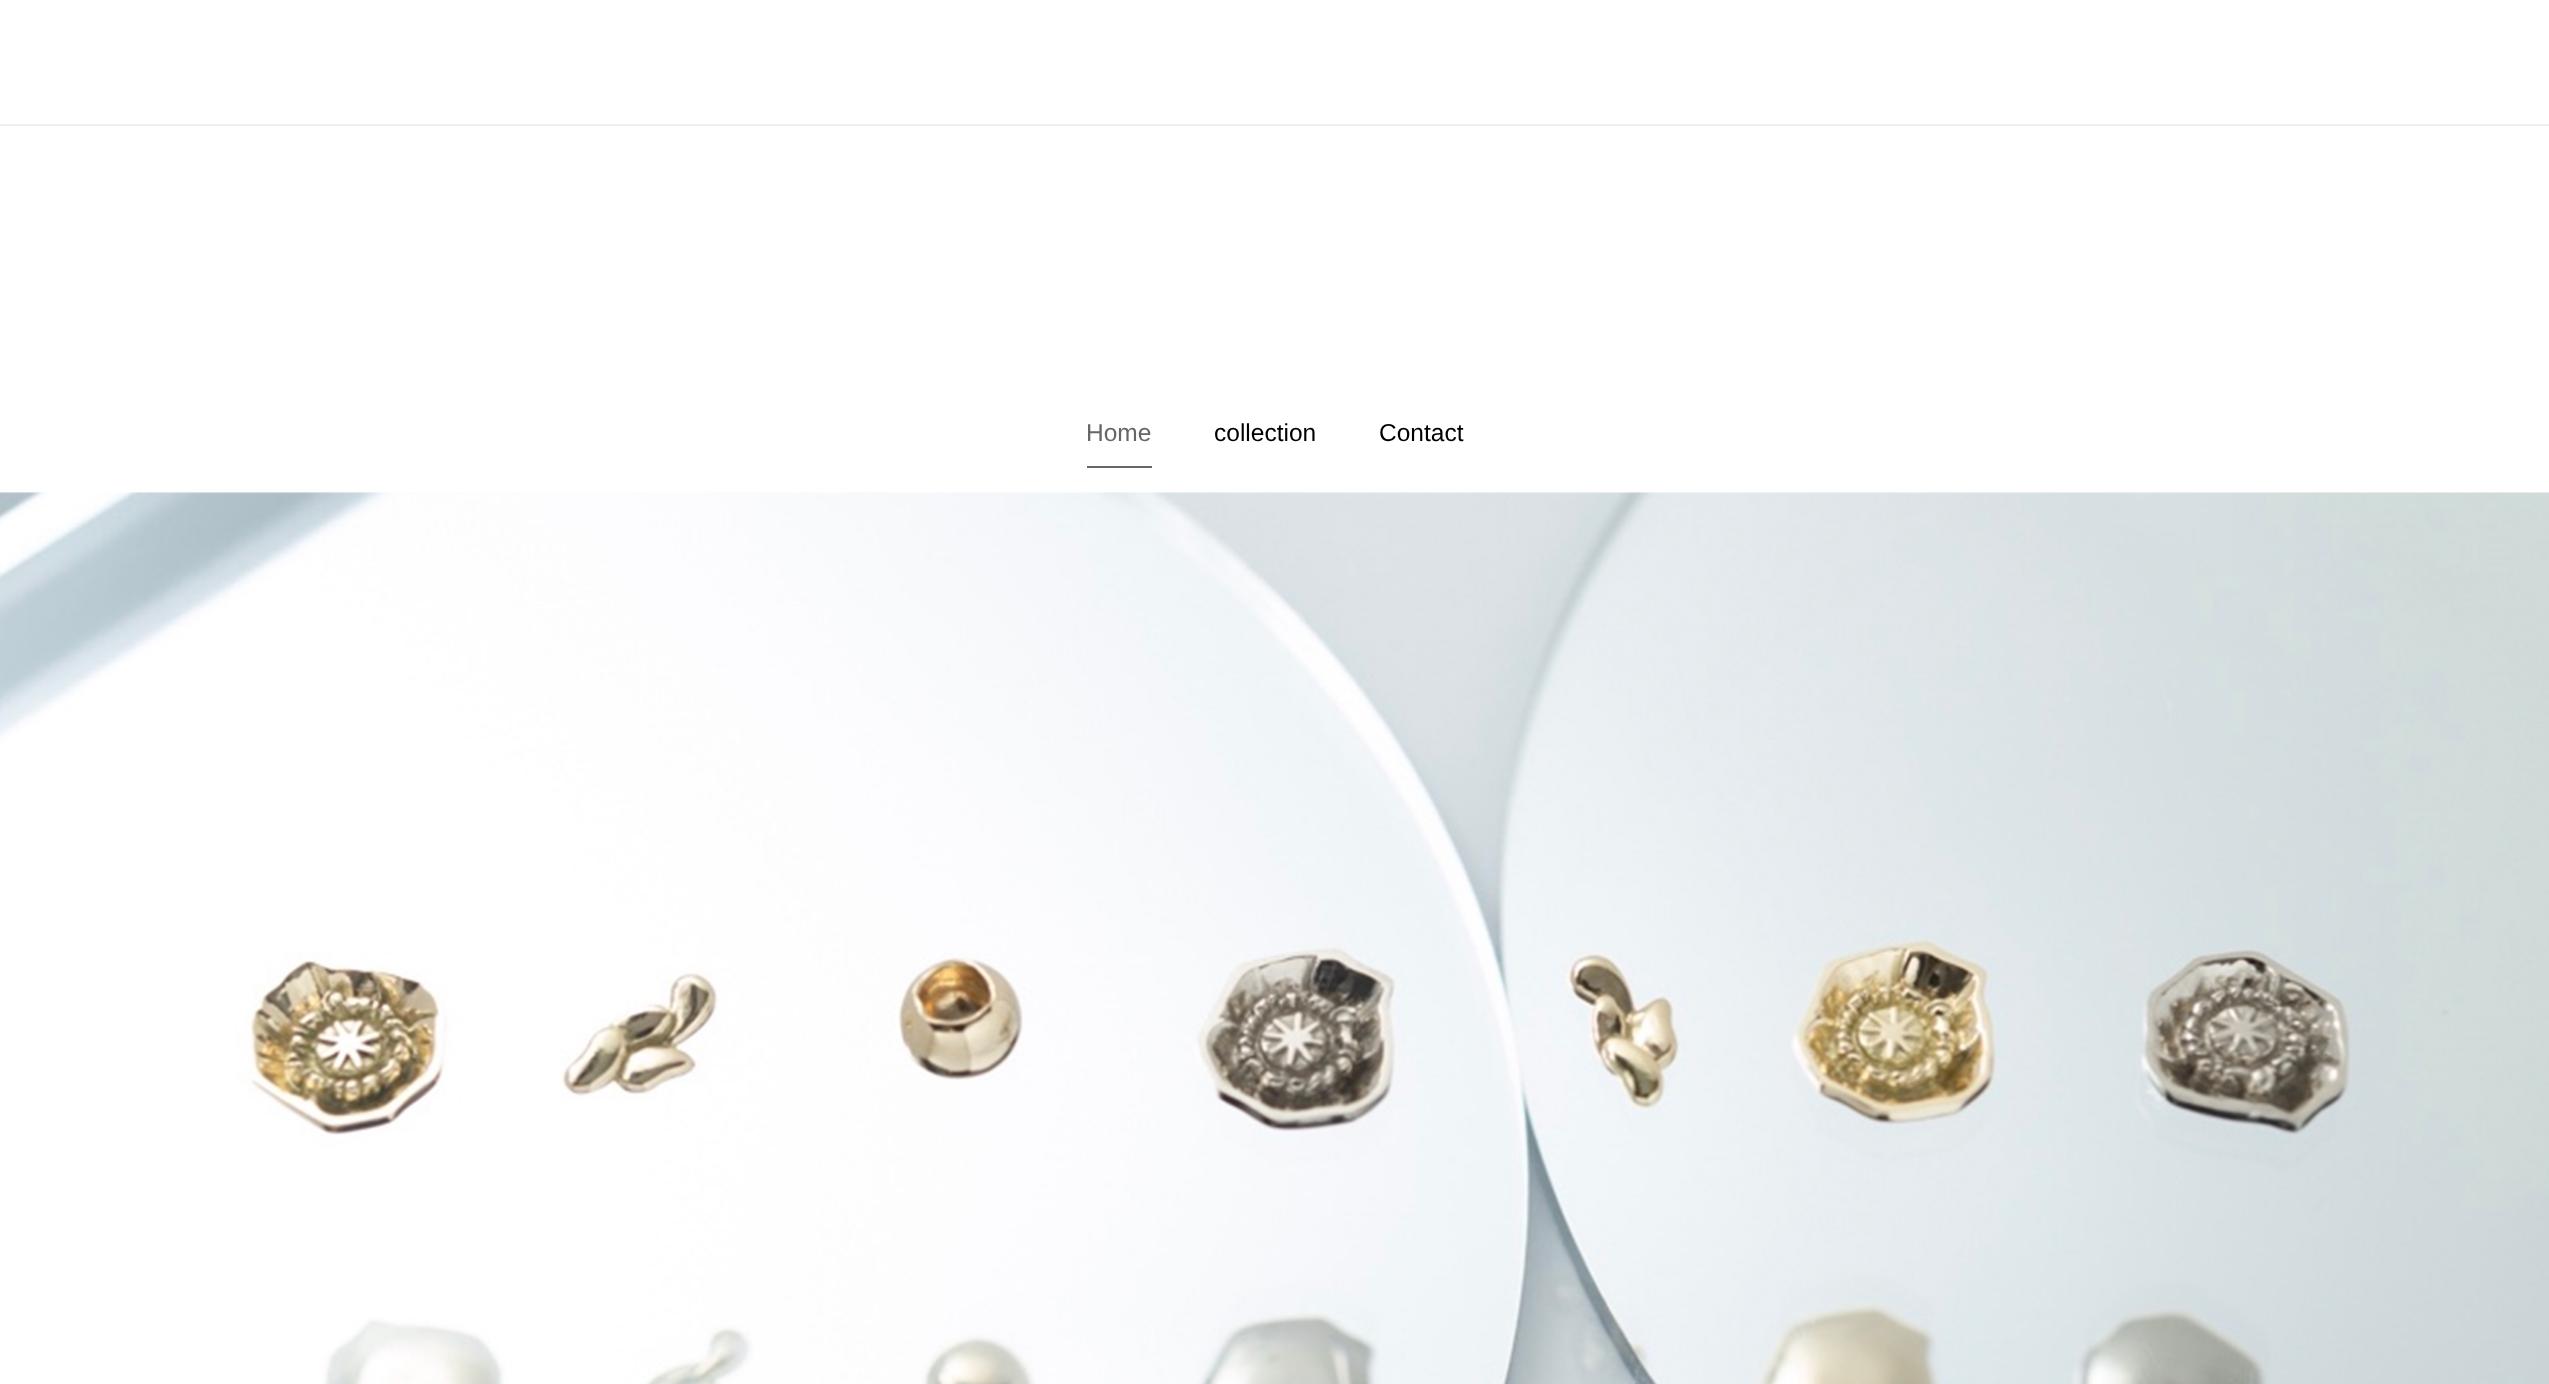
<svg xmlns="http://www.w3.org/2000/svg" xmlns:xlink="http://www.w3.org/1999/xlink" width="2549" height="1384" viewBox="0 0 2549 1384">
<style>
.cls-1{font:24.5px Liberation Sans;fill:#666666}
.cls-2{font:24.5px Liberation Sans;fill:#000000}
</style>
<rect width="100%" height="100%" fill="#ffffff"/>
<rect fill="#eeeeee" x="0" y="124" width="2549" height="2"/>
<rect fill="#666666" x="1087" y="466" width="65" height="2"/>
<image xlink:href="image0.png" x="0" y="492" width="2549" height="892"/>
<text class="cls-1" x="1086" y="441">Home</text>
<text class="cls-2" x="1214" y="441">collection</text>
<text class="cls-2" x="1379" y="441">Contact</text>
</svg>
